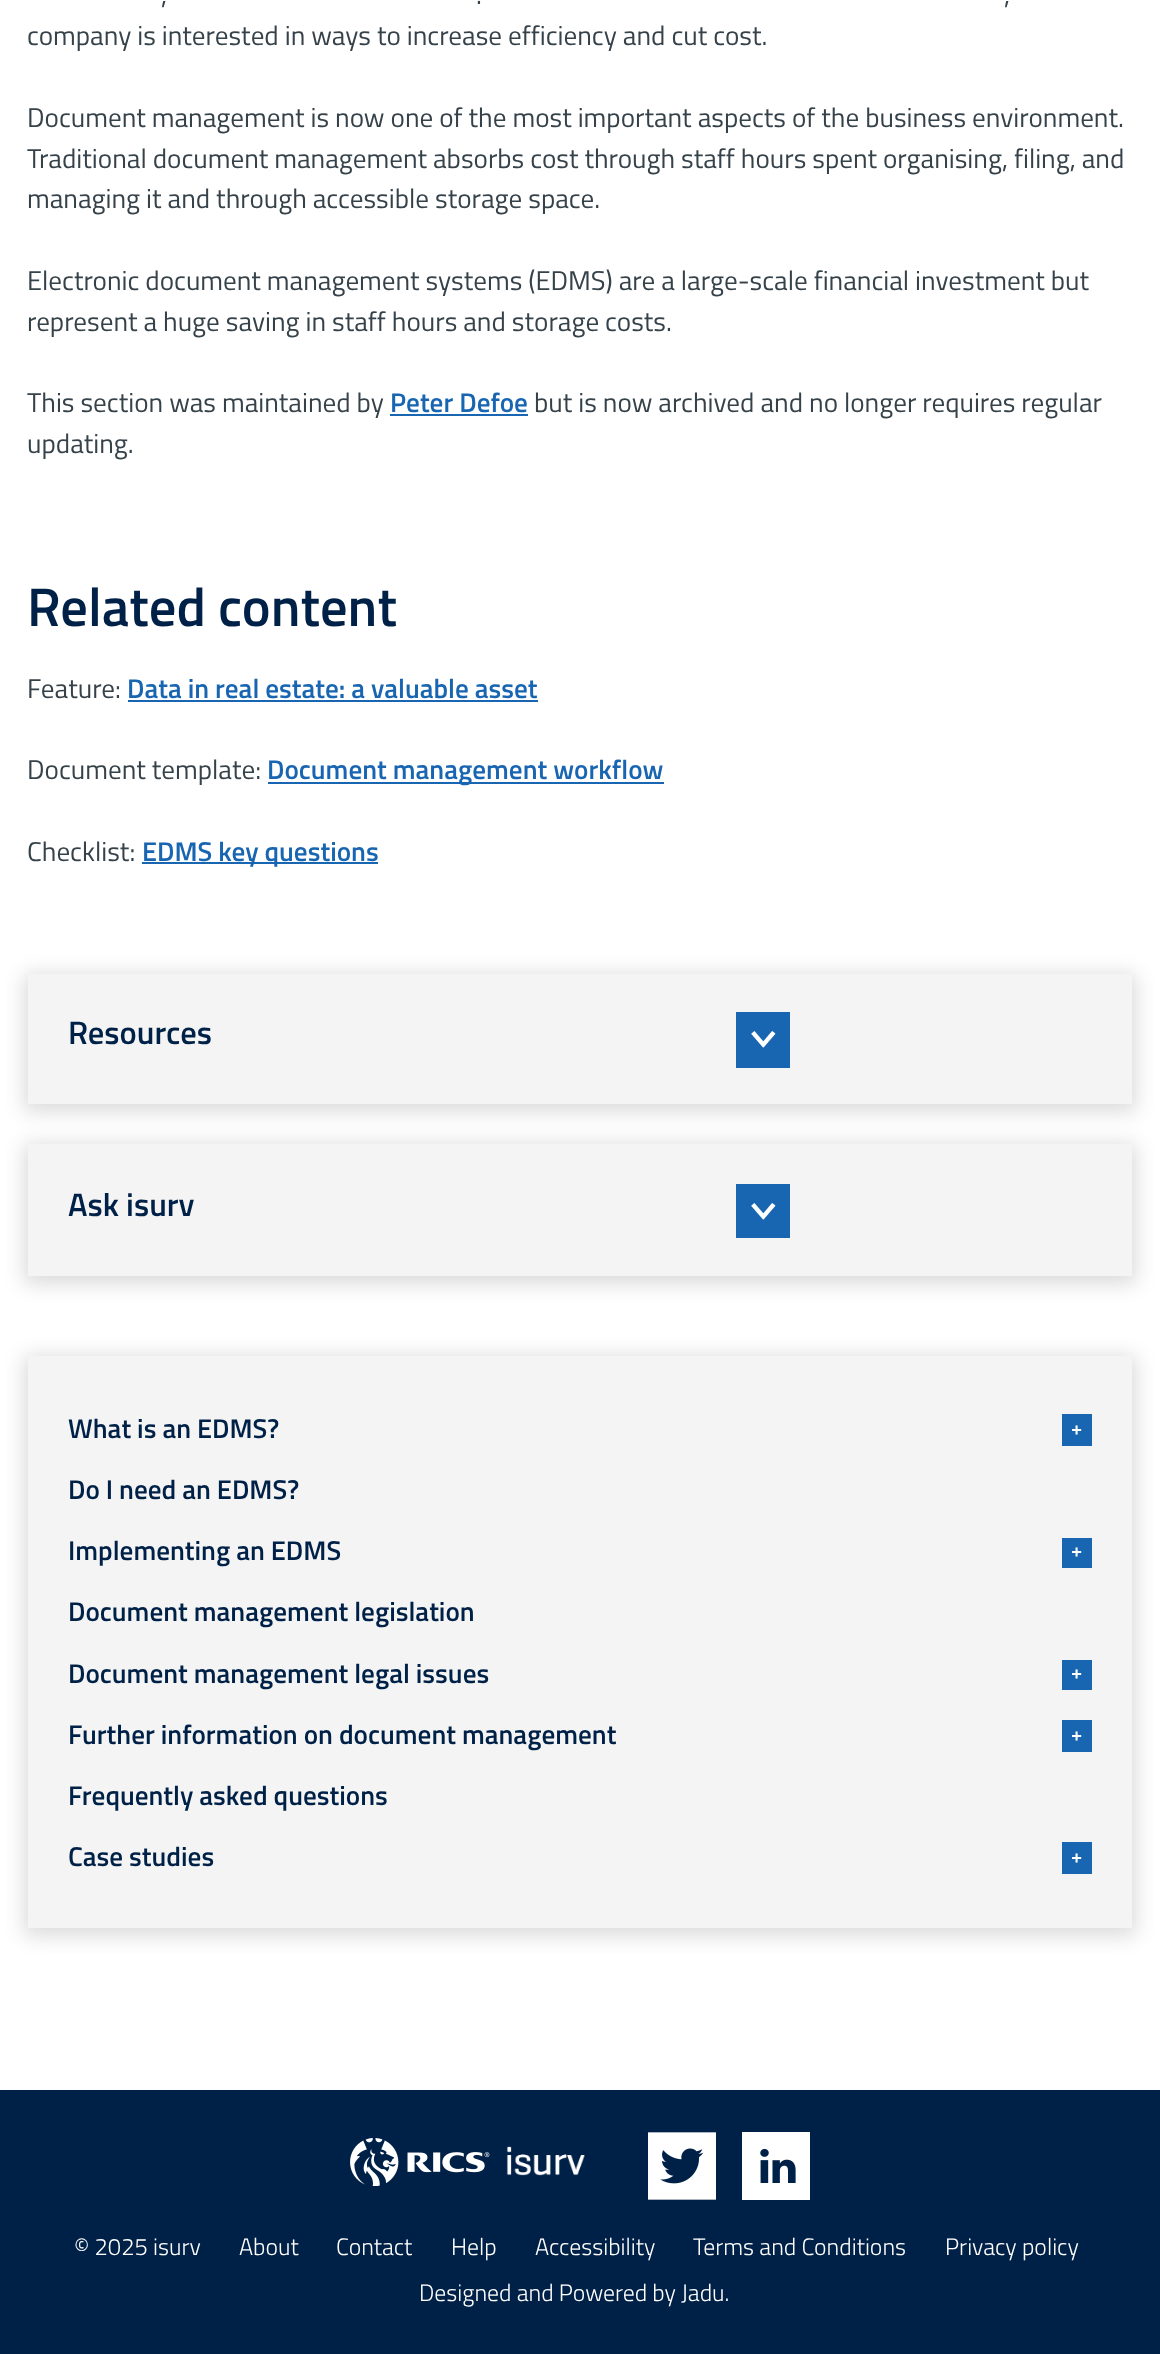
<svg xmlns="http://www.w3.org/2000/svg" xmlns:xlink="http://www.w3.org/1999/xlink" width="1160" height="2354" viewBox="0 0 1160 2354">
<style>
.cls-1{font:27.2px Titillium Web;fill:#36424a}
.cls-2{font:600 27.2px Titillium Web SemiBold;fill:#1865b2}
.cls-3{font:600 54.5px Titillium Web SemiBold;fill:#002147}
.cls-4{font:600 32.5px Titillium Web SemiBold;fill:#002147}
.cls-5{font:600 27.2px Titillium Web SemiBold;fill:#002147}
.cls-6{font:600 20px Titillium Web SemiBold;fill:#ffffff}
.cls-7{font:300 23.75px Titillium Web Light;fill:#ffffff}
</style>
<rect width="100%" height="100%" fill="#ffffff"/>
<rect fill="#1865b2" x="390" y="414" width="138" height="2"/>
<rect fill="#1865b2" x="128" y="700" width="410" height="2"/>
<rect fill="#1865b2" x="268" y="782" width="396" height="2"/>
<rect fill="#1865b2" x="142" y="862" width="236" height="2"/>
<rect fill="#dbdbdb" filter="blur(10px)" x="24" y="974" width="1112" height="138"/>
<rect fill="#f4f4f4" x="28" y="974" width="1104" height="130"/>
<rect fill="#1865b2" x="736" y="1012" width="54" height="56"/>
<image xlink:href="image0.png" x="751" y="1031" width="25" height="17"/>
<rect fill="#dbdbdb" filter="blur(10px)" x="24" y="1144" width="1112" height="140"/>
<rect fill="#f4f4f4" x="28" y="1144" width="1104" height="132"/>
<rect fill="#1865b2" x="736" y="1184" width="54" height="54"/>
<image xlink:href="image0.png" x="751" y="1203" width="25" height="17"/>
<rect fill="#dbdbdb" filter="blur(10px)" x="24" y="1356" width="1112" height="580"/>
<rect fill="#f4f4f4" x="28" y="1356" width="1104" height="572"/>
<rect fill="#1865b2" x="1062" y="1414" width="30" height="32"/>
<rect fill="#1865b2" x="1062" y="1538" width="30" height="30"/>
<rect fill="#1865b2" x="1062" y="1660" width="30" height="30"/>
<rect fill="#1865b2" x="1062" y="1720" width="30" height="32"/>
<rect fill="#1865b2" x="1062" y="1842" width="30" height="32"/>
<rect fill="#002147" x="0" y="2090" width="1160" height="264"/>
<image xlink:href="image1.png" x="350" y="2138" width="140" height="48"/>
<image xlink:href="image2.png" x="506" y="2146" width="79" height="30"/>
<image xlink:href="image3.png" x="648" y="2132" width="68" height="68"/>
<image xlink:href="image4.png" x="742" y="2132" width="68" height="68"/>
<text class="cls-1" x="161" y="4">,</text>
<text class="cls-1" x="476" y="4">.</text>
<text class="cls-1" x="1004" y="4">,</text>
<text class="cls-1" x="27" y="45">company is interested in ways to increase efficiency and cut cost.</text>
<text class="cls-1"><tspan x="27" y="127">Document management is now one of the most important aspects of the business environment.</tspan><tspan x="27" y="168">Traditional document management absorbs cost through staff hours spent organising, filing, and</tspan><tspan x="27" y="208">managing it and through accessible storage space.</tspan></text>
<text class="cls-1"><tspan x="27" y="290">Electronic document management systems (EDMS) are a large-scale financial investment but</tspan><tspan x="27" y="331">represent a huge saving in staff hours and storage costs.</tspan></text>
<text class="cls-1" x="27" y="412">This section was maintained by</text>
<text class="cls-2" x="390" y="412">Peter Defoe</text>
<text class="cls-1" x="534" y="412">but is now archived and no longer requires regular</text>
<text class="cls-1" x="27" y="453">updating.</text>
<text class="cls-3" x="27" y="626">Related content</text>
<text class="cls-1" x="27" y="698">Feature:</text>
<text class="cls-2" x="127" y="698">Data in real estate: a valuable asset</text>
<text class="cls-1" x="27" y="779">Document template:</text>
<text class="cls-2" x="267" y="779">Document management workflow</text>
<text class="cls-1" x="27" y="861">Checklist:</text>
<text class="cls-2" x="142" y="861">EDMS key questions</text>
<text class="cls-4" x="68" y="1044">Resources</text>
<text class="cls-4" x="68" y="1216">Ask isurv</text>
<text class="cls-5" x="68" y="1438">What is an EDMS?</text>
<text class="cls-6" x="1071" y="1435">+</text>
<text class="cls-5" x="68" y="1499">Do I need an EDMS?</text>
<text class="cls-5" x="68" y="1560">Implementing an EDMS</text>
<text class="cls-6" x="1071" y="1557">+</text>
<text class="cls-5" x="68" y="1621">Document management legislation</text>
<text class="cls-5" x="68" y="1683">Document management legal issues</text>
<text class="cls-6" x="1071" y="1679">+</text>
<text class="cls-5" x="68" y="1744">Further information on document management</text>
<text class="cls-6" x="1071" y="1741">+</text>
<text class="cls-5" x="68" y="1805">Frequently asked questions</text>
<text class="cls-5" x="68" y="1866">Case studies</text>
<text class="cls-6" x="1071" y="1863">+</text>
<text class="cls-7" x="74" y="2255">© 2025 isurv</text>
<text class="cls-7" x="239" y="2255">About</text>
<text class="cls-7" x="336" y="2255">Contact</text>
<text class="cls-7" x="451" y="2255">Help</text>
<text class="cls-7" x="535" y="2255">Accessibility</text>
<text class="cls-7" x="693" y="2255">Terms and Conditions</text>
<text class="cls-7" x="945" y="2255">Privacy policy</text>
<text class="cls-7" x="419" y="2301">Designed and Powered by Jadu.</text>
</svg>
